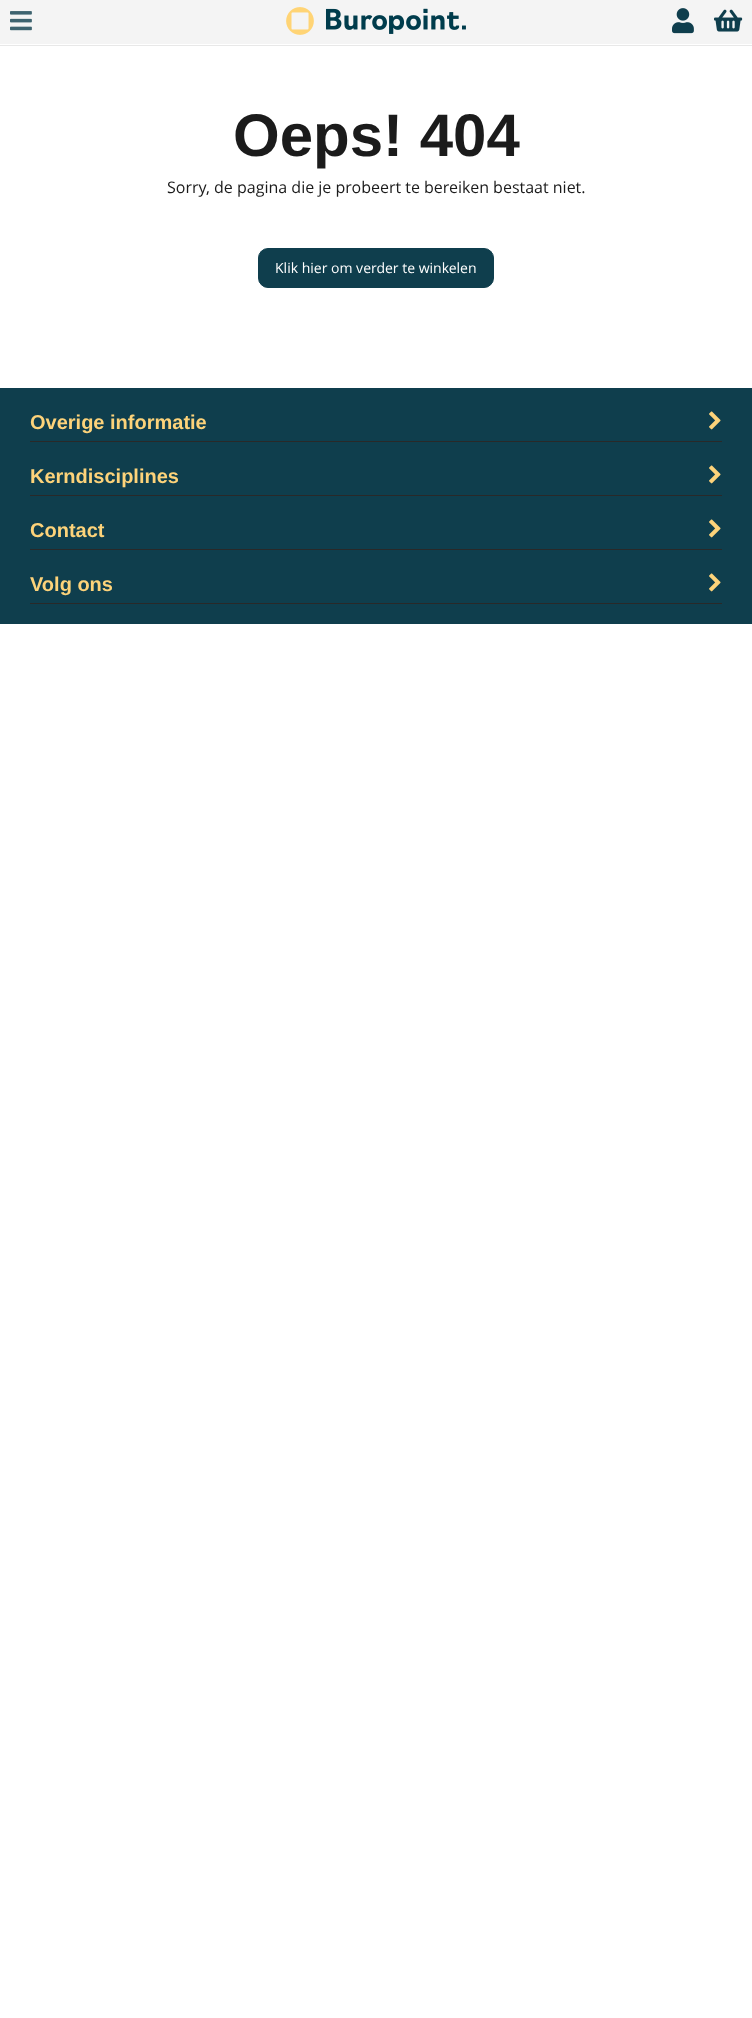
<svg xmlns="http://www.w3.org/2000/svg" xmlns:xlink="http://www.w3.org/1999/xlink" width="752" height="2018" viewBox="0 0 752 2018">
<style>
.cls-1{font:bold 60px Liberation Sans;fill:#1b1b1b}
.cls-2{font:16px Open Sans;fill:#1b1b1b}
.cls-3{font:14px Open Sans;fill:#ffffff}
.cls-4{font:bold 20px Liberation Sans;fill:#fdd37a}
</style>
<rect width="100%" height="100%" fill="#ffffff"/>
<rect fill="#f4f4f4" x="0" y="0" width="752" height="44"/>
<rect fill="#e8e8e8" x="0" y="45" width="752" height="1"/>
<image xlink:href="image0.png" x="10" y="11" width="22" height="20"/>
<image xlink:href="image1.png" x="286" y="7" width="180" height="28"/>
<image xlink:href="image2.png" x="672" y="8" width="22" height="26"/>
<image xlink:href="image3.png" x="714" y="9" width="29" height="23"/>
<rect fill="#0f3e4d" stroke="#0f3e4d" x="258.5" y="248.5" width="235" height="39" rx="9.5"/>
<rect fill="#0f3e4d" x="0" y="388" width="752" height="236"/>
<rect fill="#292929" x="30" y="441" width="692" height="1"/>
<image xlink:href="image4.png" x="709" y="411" width="12" height="19"/>
<rect fill="#292929" x="30" y="495" width="692" height="1"/>
<image xlink:href="image4.png" x="709" y="465" width="12" height="19"/>
<rect fill="#292929" x="30" y="549" width="692" height="1"/>
<image xlink:href="image4.png" x="709" y="519" width="12" height="19"/>
<rect fill="#292929" x="30" y="603" width="692" height="1"/>
<image xlink:href="image4.png" x="709" y="573" width="12" height="19"/>
<text class="cls-1" x="233" y="156">Oeps! 404</text>
<text class="cls-2" x="167" y="193">Sorry, de pagina die je probeert te bereiken bestaat niet.</text>
<text class="cls-3" x="275" y="273">Klik hier om verder te winkelen</text>
<text class="cls-4" x="30" y="429">Overige informatie</text>
<text class="cls-4" x="30" y="483">Kerndisciplines</text>
<text class="cls-4" x="30" y="537">Contact</text>
<text class="cls-4" x="30" y="591">Volg ons</text>
</svg>
